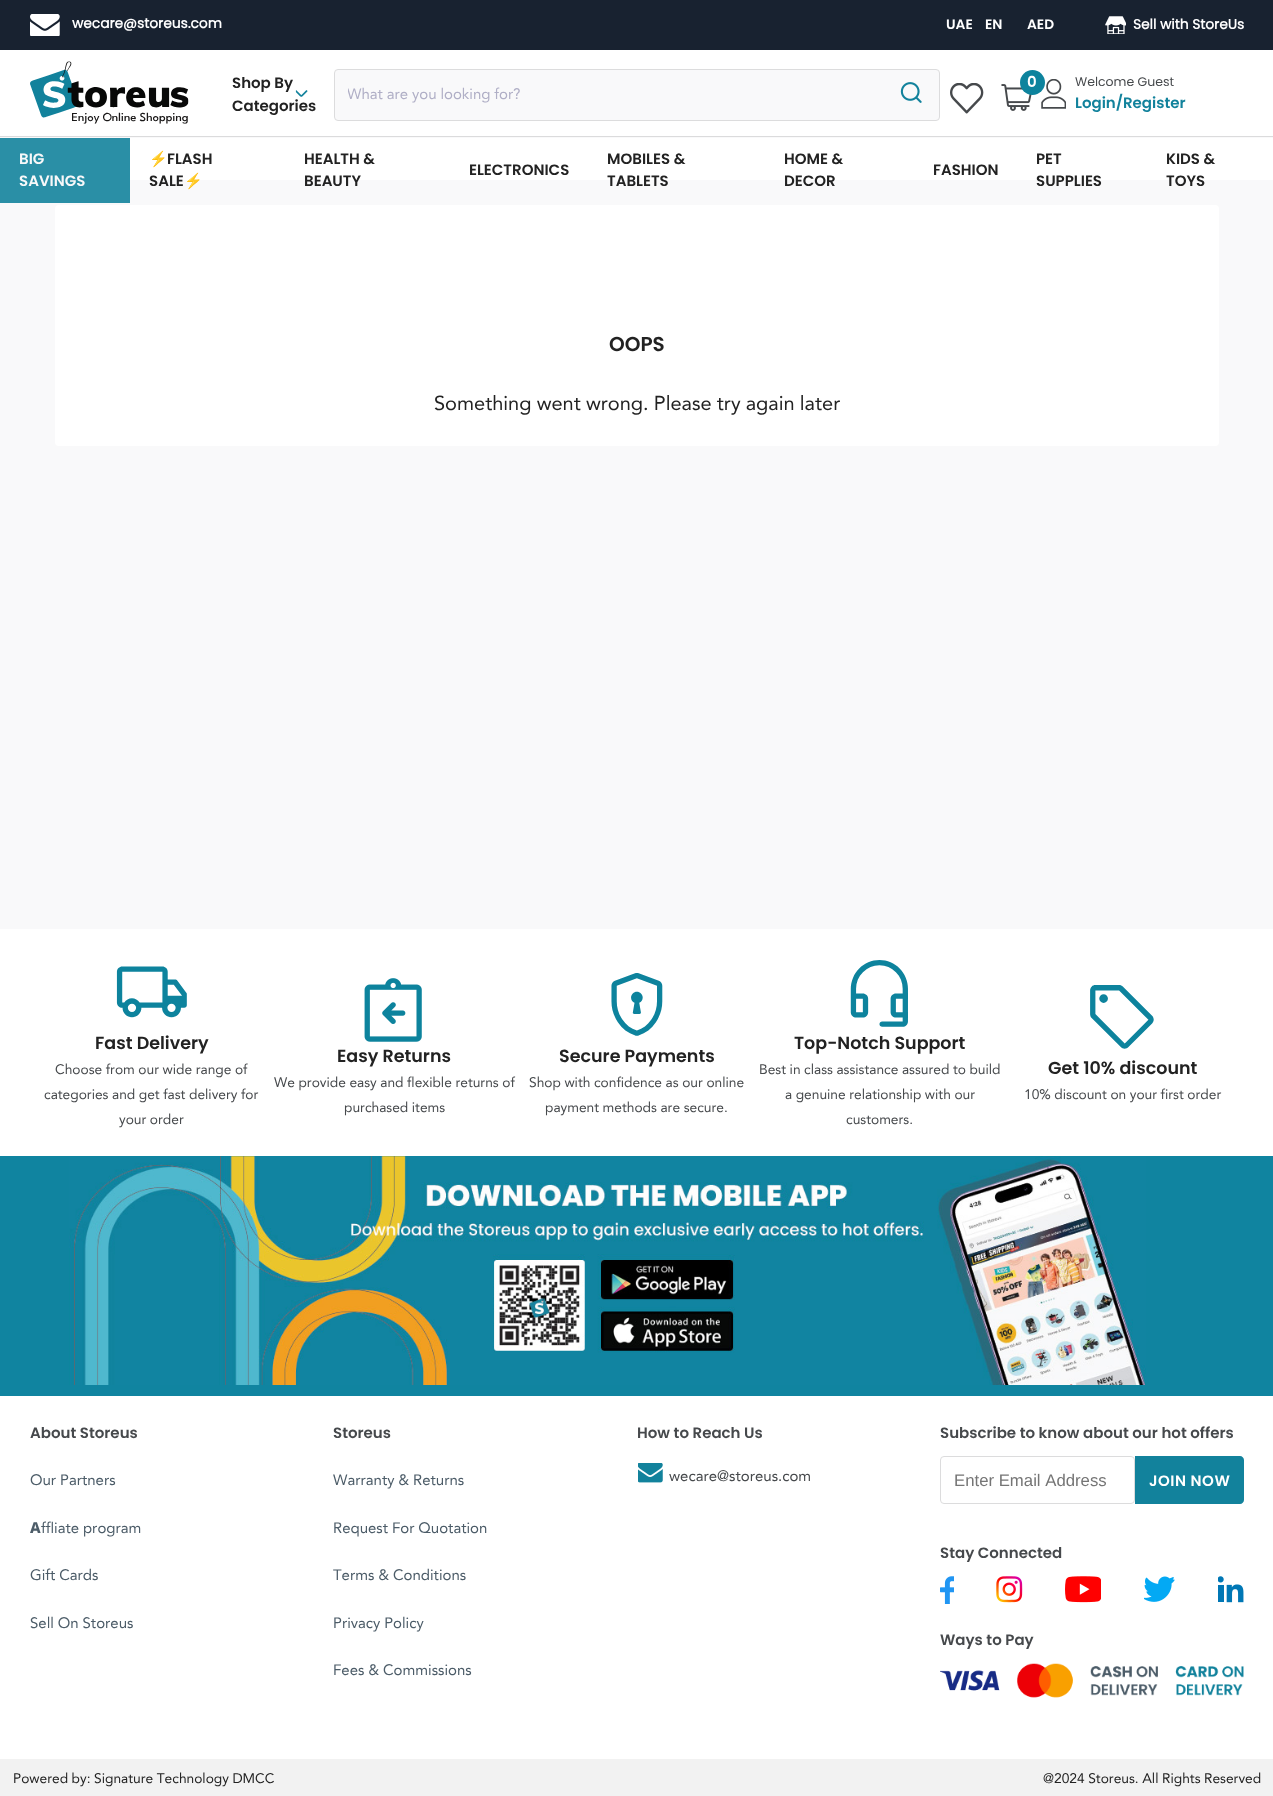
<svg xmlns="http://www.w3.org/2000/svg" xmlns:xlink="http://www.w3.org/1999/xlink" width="1273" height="1796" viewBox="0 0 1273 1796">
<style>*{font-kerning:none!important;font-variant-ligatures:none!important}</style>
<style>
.cls-1{font:bold 13.75px Poppins;fill:#ffffff}
.cls-2{font:600 13.75px Poppins;fill:#ffffff}
.cls-3{font:600 15px Poppins;fill:#222222}
.cls-4{font:15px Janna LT;fill:#b0afc6}
.cls-5{font:600 15px Poppins;fill:#ffffff}
.cls-6{font:12.5px Poppins;fill:#46494c}
.cls-7{font:600 15px Poppins;fill:#12829c}
.cls-8{font:600 15px Poppins;fill:#f8f8f9}
.cls-9{font:15px Noto Color Emoji;fill:#222222}
.cls-10{font:600 20px Poppins;fill:#222222}
.cls-11{font:20px Janna LT;fill:#222222}
.cls-12{font:600 17.5px Poppins;fill:#222222}
.cls-13{font:13.75px Janna LT;fill:#46494c}
.cls-14{font:600 15px Poppins;fill:#46494c}
.cls-15{font:15px Janna LT;fill:#4c5c68}
.cls-16{font:800 15px Noto Sans;fill:#4c5c68}
.cls-17{font:15px Janna LT;fill:#46494c}
.cls-18{font:16.75px Liberation Sans;fill:#757575}
.cls-19{font:600 15px Poppins;letter-spacing:0.5px;fill:#ffffff}
.cls-20{font:13.75px Janna LT;fill:#222222}
</style>
<defs>
<clipPath id="clip1"><rect x="348" y="81" width="527" height="28"/></clipPath>
</defs>
<rect width="100%" height="100%" fill="#f9f9fa"/>
<rect fill="#182230" x="0" y="0" width="1273" height="50"/>
<image xlink:href="image0.png" x="30" y="14" width="30" height="22"/>
<image xlink:href="image1.png" x="1105" y="16" width="21" height="18"/>
<rect fill="#ffffff" x="0" y="50" width="1273" height="86"/>
<image xlink:href="image2.png" x="30" y="61" width="159" height="63"/>
<image xlink:href="image3.png" x="295" y="90" width="13" height="7"/>
<rect fill="#f9f9fa" stroke="#dcdcdd" x="334.5" y="69.5" width="605" height="51" rx="3.5"/>
<image xlink:href="image4.png" x="900" y="82" width="22" height="21"/>
<image xlink:href="image5.png" x="950" y="83" width="34" height="31"/>
<image xlink:href="image6.png" x="1001" y="84" width="32" height="27"/>
<image xlink:href="image7.png" x="1041" y="79" width="25" height="30"/>
<circle fill="#0d839d" cx="1032.5" cy="82.5" r="12.5"/>
<rect fill="#dbdbdc" x="0" y="136" width="1273" height="1"/>
<rect fill="#ffffff" x="130" y="138" width="1143" height="42"/>
<rect fill="#2a8fa6" x="0" y="138" width="130" height="65"/>
<rect fill="#ffffff" x="55" y="205" width="1164" height="241" rx="4"/>
<rect fill="#ffffff" x="0" y="929" width="1273" height="830"/>
<image xlink:href="image8.png" x="116" y="966" width="71" height="52"/>
<image xlink:href="image9.png" x="364" y="978" width="58" height="64"/>
<image xlink:href="image10.png" x="611" y="973" width="52" height="63"/>
<image xlink:href="image11.png" x="850" y="960" width="58" height="67"/>
<image xlink:href="image12.png" x="1090" y="985" width="64" height="64"/>
<rect fill="#1084a0" x="0" y="1156" width="1273" height="240"/>
<image xlink:href="image13.png" x="69" y="1156" width="1077" height="229"/>
<image xlink:href="image14.png" x="638" y="1463" width="25" height="20"/>
<rect fill="none" stroke="#dcdcdd" x="940.5" y="1456.5" width="194" height="47" rx="3.5"/>
<path fill="#12829c" d="M1135 1456H1240C1242 1456 1244 1458 1244 1460V1500C1244 1502 1242 1504 1240 1504H1135Z"/>
<image xlink:href="image15.png" x="940" y="1576" width="14" height="28"/>
<image xlink:href="image16.png" x="996" y="1576" width="27" height="27"/>
<image xlink:href="image17.png" x="1065" y="1576" width="36" height="27"/>
<image xlink:href="image18.png" x="1144" y="1576" width="31" height="26"/>
<image xlink:href="image19.png" x="1218" y="1576" width="26" height="27"/>
<image xlink:href="image20.png" x="940" y="1663" width="304" height="35"/>
<rect fill="#f2f2f2" x="0" y="1759" width="1273" height="37"/>
<text class="cls-1" x="72" y="28">wecare@storeus.com</text>
<text class="cls-2" x="946" y="29">UAE</text>
<text class="cls-2" x="985" y="29">EN</text>
<text class="cls-2" x="1027" y="29">AED</text>
<text class="cls-1" x="1133" y="29">Sell with StoreUs</text>
<text class="cls-3"><tspan x="232" y="88">Shop By</tspan><tspan x="232" y="111">Categories</tspan></text>
<g clip-path="url(#clip1)">
<text class="cls-4" x="347" y="99">What are you looking for?</text>
</g>
<text class="cls-5" x="1027" y="87">0</text>
<text class="cls-6" x="1075" y="86">Welcome Guest</text>
<text class="cls-7" x="1075" y="108">Login/Register</text>
<text class="cls-8"><tspan x="19" y="164">BIG</tspan><tspan x="19" y="186">SAVINGS</tspan></text>
<text class="cls-9" x="149" y="164">⚡</text>
<text class="cls-3" x="167" y="164">FLASH</text>
<text class="cls-3" x="149" y="186">SALE</text>
<text class="cls-9" x="184" y="186">⚡</text>
<text class="cls-3"><tspan x="304" y="164">HEALTH &amp;</tspan><tspan x="304" y="186">BEAUTY</tspan></text>
<text class="cls-3" x="469" y="175">ELECTRONICS</text>
<text class="cls-3"><tspan x="607" y="164">MOBILES &amp;</tspan><tspan x="607" y="186">TABLETS</tspan></text>
<text class="cls-3"><tspan x="784" y="164">HOME &amp;</tspan><tspan x="784" y="186">DECOR</tspan></text>
<text class="cls-3" x="933" y="175">FASHION</text>
<text class="cls-3"><tspan x="1036" y="164">PET</tspan><tspan x="1036" y="186">SUPPLIES</tspan></text>
<text class="cls-3"><tspan x="1166" y="164">KIDS &amp;</tspan><tspan x="1166" y="186">TOYS</tspan></text>
<text class="cls-10" x="609" y="351">OOPS</text>
<text class="cls-11" x="434" y="410">Something went wrong. Please try again later</text>
<text class="cls-12" x="95" y="1049">Fast Delivery</text>
<text class="cls-13" x="55" y="1074">Choose from our wide range of</text>
<text class="cls-13" x="44" y="1099">categories and get fast delivery for</text>
<text class="cls-13" x="119" y="1124">your order</text>
<text class="cls-12" x="337" y="1062">Easy Returns</text>
<text class="cls-13" x="274" y="1087">We provide easy and flexible returns of</text>
<text class="cls-13" x="344" y="1112">purchased items</text>
<text class="cls-12" x="559" y="1062">Secure Payments</text>
<text class="cls-13" x="529" y="1087">Shop with confidence as our online</text>
<text class="cls-13" x="545" y="1112">payment methods are secure.</text>
<text class="cls-12" x="794" y="1049">Top-Notch Support</text>
<text class="cls-13" x="759" y="1074">Best in class assistance assured to build</text>
<text class="cls-13" x="785" y="1099">a genuine relationship with our</text>
<text class="cls-13" x="846" y="1124">customers.</text>
<text class="cls-12" x="1048" y="1074">Get 10% discount</text>
<text class="cls-13" x="1024" y="1099">10% discount on your first order</text>
<text class="cls-14" x="30" y="1438">About Storeus</text>
<text class="cls-15" x="30" y="1485">Our Partners</text>
<text class="cls-16" x="30" y="1533">A</text>
<text class="cls-15" x="41" y="1533">ffliate program</text>
<text class="cls-15" x="30" y="1580">Gift Cards</text>
<text class="cls-15" x="30" y="1628">Sell On Storeus</text>
<text class="cls-14" x="333" y="1438">Storeus</text>
<text class="cls-15" x="333" y="1485">Warranty &amp; Returns</text>
<text class="cls-15" x="333" y="1533">Request For Quotation</text>
<text class="cls-15" x="333" y="1580">Terms &amp; Conditions</text>
<text class="cls-15" x="333" y="1628">Privacy Policy</text>
<text class="cls-15" x="333" y="1675">Fees &amp; Commissions</text>
<text class="cls-14" x="637" y="1438">How to Reach Us</text>
<text class="cls-17" x="669" y="1481">wecare@storeus.com</text>
<text class="cls-14" x="940" y="1438">Subscribe to know about our hot offers</text>
<text class="cls-18" x="954" y="1486">Enter Email Address</text>
<text class="cls-19" x="1149" y="1486">JOIN NOW</text>
<text class="cls-14" x="940" y="1558">Stay Connected</text>
<text class="cls-14" x="940" y="1645">Ways to Pay</text>
<text class="cls-20" x="13" y="1783">Powered by: Signature Technology DMCC</text>
<text class="cls-20" x="1043" y="1783">@2024 Storeus. All Rights Reserved</text>
</svg>
